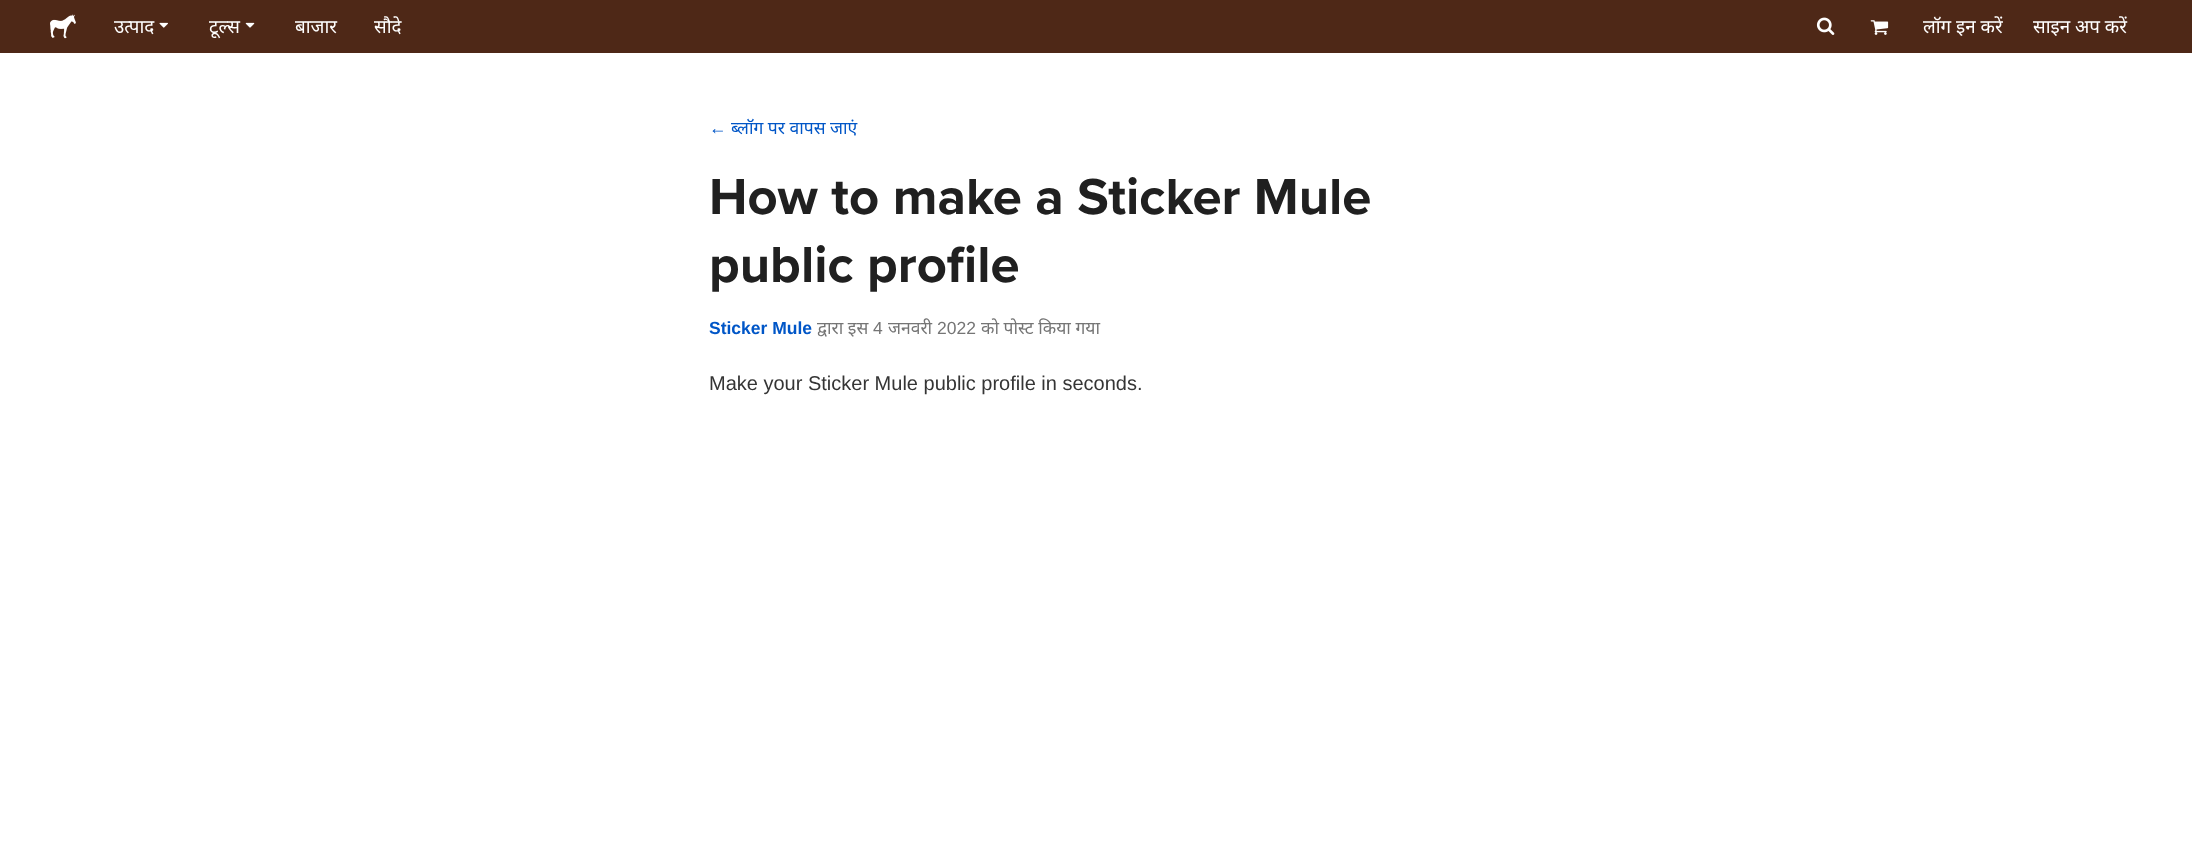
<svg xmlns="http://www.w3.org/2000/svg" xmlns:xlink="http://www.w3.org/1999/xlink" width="2192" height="843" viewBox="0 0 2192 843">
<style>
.cls-1{font:18.75px Noto Sans;fill:#ffffff}
.cls-2{font:bold 17.5px Liberation Sans;fill:#0056c7}
.cls-3{font:17.5px Noto Sans;fill:#0056c7}
.cls-4{font:bold 52.5px Proxima Nova;fill:#202020}
.cls-5{font:17.5px Noto Sans;fill:#757575}
.cls-6{font:17.5px Liberation Sans;fill:#757575}
.cls-7{font:20px Liberation Sans;fill:#353535}
</style>
<rect width="100%" height="100%" fill="#ffffff"/>
<rect fill="#4e2817" x="0" y="0" width="2192" height="53"/>
<image xlink:href="image0.png" x="50" y="14" width="26" height="25"/>
<image xlink:href="image1.png" x="159" y="22" width="9" height="6"/>
<image xlink:href="image2.png" x="245" y="22" width="10" height="6"/>
<image xlink:href="image3.png" x="1816" y="17" width="19" height="18"/>
<image xlink:href="image4.png" x="1870" y="20" width="19" height="15"/>
<text class="cls-1" x="114" y="33">उत्पाद</text>
<text class="cls-1" x="209" y="33">टूल्स</text>
<text class="cls-1" x="295" y="33">बाजार</text>
<text class="cls-1" x="374" y="33">सौदे</text>
<text class="cls-1" x="1923" y="33">लॉग इन करें</text>
<text class="cls-1" x="2033" y="33">साइन अप करें</text>
<text class="cls-2" x="709" y="134">←</text>
<text class="cls-3" x="731" y="134">ब्लॉग पर वापस जाएं</text>
<text class="cls-4"><tspan x="709" y="214">How to make a Sticker Mule</tspan><tspan x="709" y="282">public profile</tspan></text>
<text class="cls-2" x="709" y="334">Sticker Mule</text>
<text class="cls-5" x="817" y="334">द्वारा इस</text>
<text class="cls-6" x="873" y="334">4</text>
<text class="cls-5" x="888" y="334">जनवरी</text>
<text class="cls-6" x="937" y="334">2022</text>
<text class="cls-5" x="981" y="334">को पोस्ट किया गया</text>
<text class="cls-7" x="709" y="390">Make your Sticker Mule public profile in seconds.</text>
</svg>
